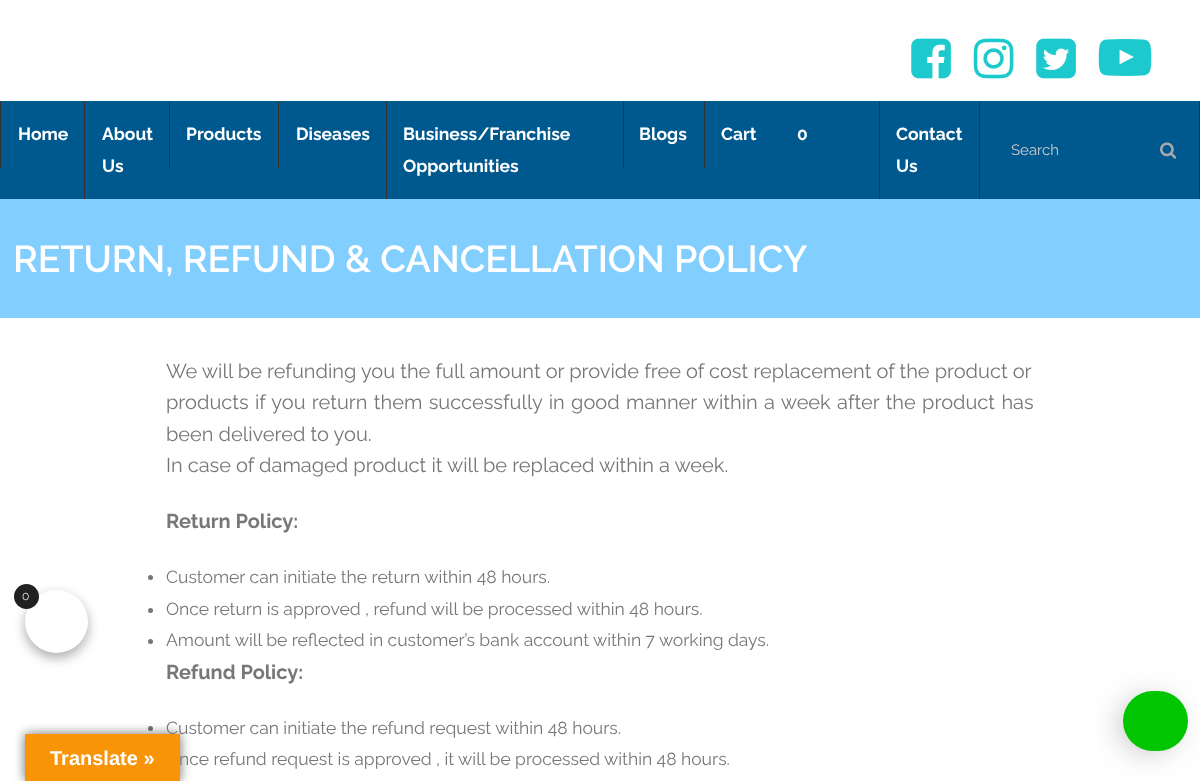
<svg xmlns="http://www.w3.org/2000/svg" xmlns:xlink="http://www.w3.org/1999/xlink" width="1200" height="781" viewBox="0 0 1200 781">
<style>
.cls-1{font:bold 17.5px Raleway;fill:#ffffff}
.cls-2{font:15px Raleway;fill:#cacaca}
.cls-3{font:600 37.5px Raleway;fill:#ffffff}
.cls-4{font:20px Raleway;fill:#777777}
.cls-5{font:bold 20px Raleway;fill:#777777}
.cls-6{font:17.5px Raleway;fill:#777777}
.cls-7{font:300 12px Raleway;fill:#ffffff}
.cls-8{font:bold 20px Liberation Sans;fill:#ffffff}
</style>
<rect width="100%" height="100%" fill="#ffffff"/>
<image xlink:href="image0.png" x="911" y="38" width="40" height="41"/>
<image xlink:href="image1.png" x="973" y="38" width="41" height="41"/>
<image xlink:href="image2.png" x="1036" y="38" width="40" height="41"/>
<image xlink:href="image3.png" x="1098" y="39" width="54" height="37"/>
<rect fill="#00598e" x="0" y="101" width="1199" height="98"/>
<rect fill="#333333" x="0" y="101" width="1" height="67"/>
<rect fill="#333333" x="84" y="101" width="1" height="98"/>
<rect fill="#333333" x="169" y="101" width="1" height="67"/>
<rect fill="#333333" x="278" y="101" width="1" height="67"/>
<rect fill="#333333" x="386" y="101" width="1" height="98"/>
<rect fill="#333333" x="623" y="101" width="1" height="67"/>
<rect fill="#333333" x="704" y="101" width="1" height="67"/>
<rect fill="#333333" x="879" y="101" width="1" height="98"/>
<rect fill="#333333" x="1199" y="101" width="1" height="98"/>
<rect fill="#333333" x="979" y="101" width="1" height="98"/>
<image xlink:href="image4.png" x="1160" y="142" width="17" height="17"/>
<rect fill="#81ceff" x="0" y="199" width="1200" height="119"/>
<circle fill="#777777" cx="150.5" cy="577.5" r="2.5"/>
<circle fill="#777777" cx="150.5" cy="610.5" r="2.5"/>
<circle fill="#777777" cx="150.5" cy="641.5" r="2.5"/>
<circle fill="#777777" cx="150.5" cy="728.5" r="2.5"/>
<rect fill="#000000" fill-opacity="0.17" filter="blur(6px)" x="25" y="595" width="63" height="63" rx="31.5"/>
<rect fill="#000000" fill-opacity="0.17" filter="blur(6px)" x="25" y="595" width="63" height="63" rx="31.5"/>
<circle fill="#ffffff" cx="56.5" cy="621.5" r="31.5"/>
<circle fill="#212121" cx="26.5" cy="596.5" r="12.5"/>
<rect fill="#000000" fill-opacity="0.3" filter="blur(5.5px)" x="25" y="734" width="155" height="47"/>
<rect fill="#2a2a2a" fill-opacity="0.31" filter="blur(15.5px)" x="1121" y="700" width="55" height="50" rx="25"/>
<rect fill="#01c501" x="1123" y="691" width="65" height="60" rx="30"/>
<rect fill="#000000" fill-opacity="0.3" filter="blur(5.5px)" x="25" y="734" width="155" height="47"/>
<text class="cls-1" x="18" y="140">Home</text>
<text class="cls-1"><tspan x="102" y="140">About</tspan><tspan x="102" y="172">Us</tspan></text>
<text class="cls-1" x="186" y="140">Products</text>
<text class="cls-1" x="296" y="140">Diseases</text>
<text class="cls-1"><tspan x="403" y="140">Business/Franchise</tspan><tspan x="403" y="172">Opportunities</tspan></text>
<text class="cls-1" x="639" y="140">Blogs</text>
<text class="cls-1" x="721" y="140">Cart</text>
<text class="cls-1" x="797" y="140">0</text>
<text class="cls-1"><tspan x="896" y="140">Contact</tspan><tspan x="896" y="172">Us</tspan></text>
<text class="cls-2" x="1011" y="155">Search</text>
<text class="cls-3" x="13" y="272">RETURN, REFUND &amp; CANCELLATION POLICY</text>
<text class="cls-4"><tspan x="166" y="378">We will be refunding you the full amount or provide free of cost replacement of the product or</tspan><tspan x="166" y="409" word-spacing="1.25">products if you return them successfully in good manner within a week after the product has</tspan><tspan x="166" y="441">been delivered to you.</tspan><tspan x="166" y="472">In case of damaged product it will be replaced within a week.</tspan></text>
<text class="cls-5" x="166" y="528">Return Policy:</text>
<text class="cls-6"><tspan x="166" y="583">Customer can initiate the return within 48 hours.</tspan><tspan x="166" y="615">Once return is approved , refund will be processed within 48 hours.</tspan><tspan x="166" y="646">Amount will be reflected in customer’s bank account within 7 working days.</tspan></text>
<text class="cls-5" x="166" y="679">Refund Policy:</text>
<text class="cls-6" x="166" y="734">Customer can initiate the refund request within 48 hours.</text>
<text class="cls-6" x="179" y="765">nce refund request is approved , it will be processed within 48 hours.</text>
<text class="cls-7" x="22" y="600">0</text>
<rect fill="#f89406" x="25" y="734" width="155" height="47"/>
<text class="cls-8" x="50" y="765">Translate »</text>
</svg>
